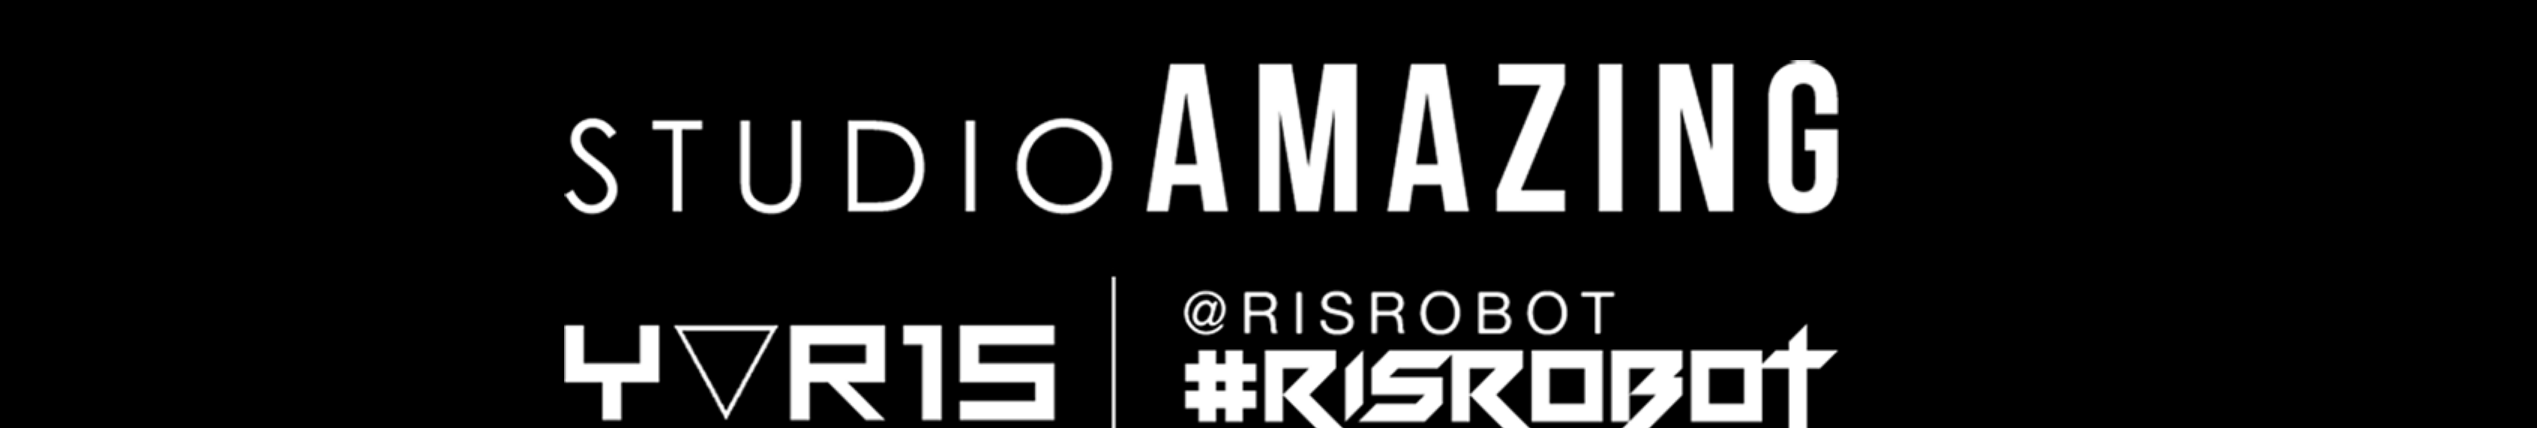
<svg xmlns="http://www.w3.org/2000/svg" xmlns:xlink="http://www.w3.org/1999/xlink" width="2537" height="428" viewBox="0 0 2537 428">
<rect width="100%" height="100%" fill="#000000"/>
<image xlink:href="image0.png" x="564" y="60" width="1275" height="368"/>
</svg>
